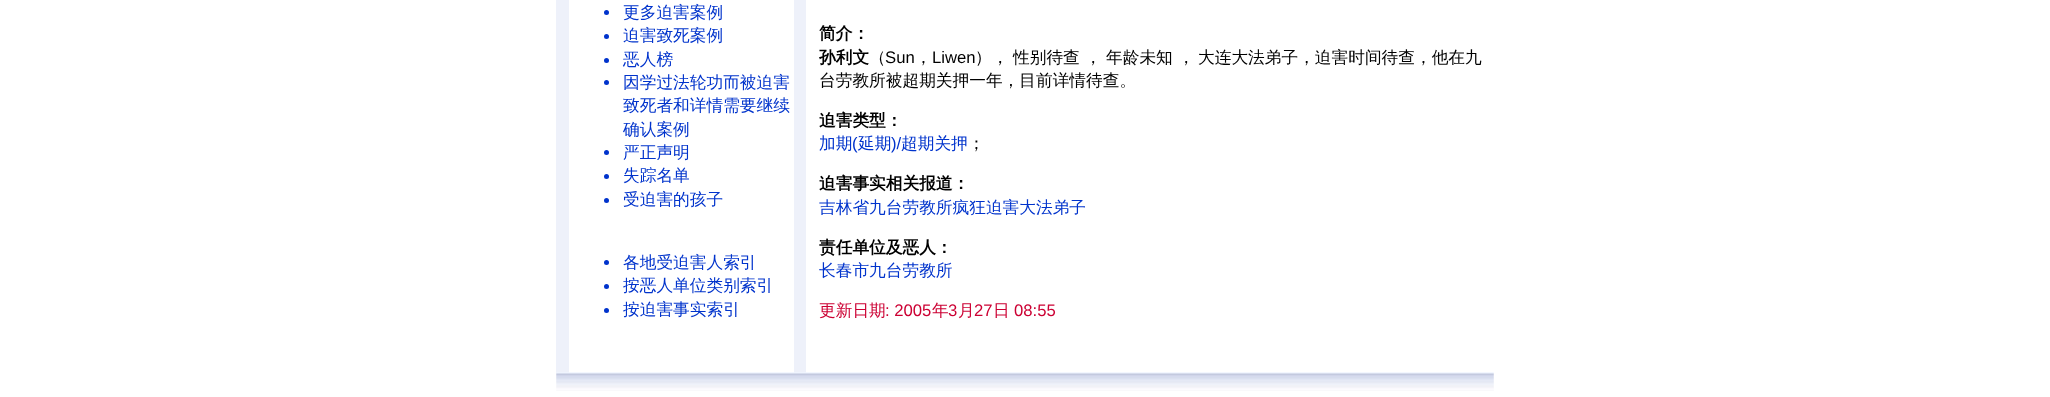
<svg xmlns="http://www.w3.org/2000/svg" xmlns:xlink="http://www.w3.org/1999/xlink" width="2050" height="397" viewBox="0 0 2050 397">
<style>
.cls-1{font:500 16.7px WenQuanYi Zen Hei;fill:#0033cc}
.cls-2{font:bold 16.7px WenQuanYi Zen Hei;fill:#000000}
.cls-3{font:500 16.7px WenQuanYi Zen Hei;fill:#000000}
.cls-4{font:16.7px Liberation Sans;fill:#000000}
.cls-5{font:16.7px Liberation Sans;fill:#0033cc}
.cls-6{font:500 16.7px WenQuanYi Zen Hei;fill:#cc0033}
.cls-7{font:16.7px Liberation Sans;fill:#cc0033}
</style>
<rect width="100%" height="100%" fill="#ffffff"/>
<rect fill="#eef1fa" x="556" y="0" width="13" height="373"/>
<circle fill="#0033cc" cx="606.5" cy="12.5" r="2.5"/>
<circle fill="#0033cc" cx="606.5" cy="36.5" r="2.5"/>
<circle fill="#0033cc" cx="606.5" cy="60.5" r="2.5"/>
<circle fill="#0033cc" cx="606.5" cy="82.5" r="2.5"/>
<circle fill="#0033cc" cx="606.5" cy="152.5" r="2.5"/>
<circle fill="#0033cc" cx="606.5" cy="176.5" r="2.5"/>
<circle fill="#0033cc" cx="606.5" cy="200.5" r="2.5"/>
<circle fill="#0033cc" cx="606.5" cy="262.5" r="2.5"/>
<circle fill="#0033cc" cx="606.5" cy="286.5" r="2.5"/>
<circle fill="#0033cc" cx="606.5" cy="310.5" r="2.5"/>
<rect fill="#eef1fa" x="794" y="0" width="12" height="373"/>
<image xlink:href="image0.png" x="556" y="372" width="938" height="19"/>
<text class="cls-1"><tspan x="623" y="18">更多迫害案例</tspan><tspan x="623" y="41">迫害致死案例</tspan><tspan x="623" y="65">恶人榜</tspan><tspan x="623" y="88">因学过法轮功而被迫害</tspan><tspan x="623" y="111">致死者和详情需要继续</tspan><tspan x="623" y="135">确认案例</tspan><tspan x="623" y="158">严正声明</tspan><tspan x="623" y="181">失踪名单</tspan><tspan x="623" y="205">受迫害的孩子</tspan></text>
<text class="cls-1"><tspan x="623" y="268">各地受迫害人索引</tspan><tspan x="623" y="291">按恶人单位类别索引</tspan><tspan x="623" y="315">按迫害事实索引</tspan></text>
<text class="cls-2"><tspan x="819" y="39">简介：</tspan><tspan x="819" y="63">孙利文</tspan></text>
<text class="cls-3" x="869" y="63">（</text>
<text class="cls-4" x="885" y="63">Sun</text>
<text class="cls-3" x="915" y="63">，</text>
<text class="cls-4" x="932" y="63">Liwen</text>
<text class="cls-3" x="975" y="63">），</text>
<text class="cls-3" x="1013" y="63">性别待查 ，</text>
<text class="cls-3" x="1106" y="63">年龄未知 ，</text>
<text class="cls-3" x="1198" y="63">大连大法弟子，迫害时间待查，他在九</text>
<text class="cls-3" x="819" y="86">台劳教所被超期关押一年，目前详情待查。</text>
<text class="cls-2" x="819" y="126">迫害类型：</text>
<text class="cls-1" x="819" y="149">加期</text>
<text class="cls-5" x="852" y="149">(</text>
<text class="cls-1" x="858" y="149">延期</text>
<text class="cls-5" x="891" y="149">)/</text>
<text class="cls-1" x="901" y="149">超期关押</text>
<text class="cls-3" x="968" y="149">；</text>
<text class="cls-2" x="819" y="189">迫害事实相关报道：</text>
<text class="cls-1" x="819" y="213">吉林省九台劳教所疯狂迫害大法弟子</text>
<text class="cls-2" x="819" y="253">责任单位及恶人：</text>
<text class="cls-1" x="819" y="276">长春市九台劳教所</text>
<text class="cls-6" x="819" y="316">更新日期</text>
<text class="cls-7" x="885" y="316">: 2005</text>
<text class="cls-6" x="932" y="316">年</text>
<text class="cls-7" x="948" y="316">3</text>
<text class="cls-6" x="958" y="316">月</text>
<text class="cls-7" x="974" y="316">27</text>
<text class="cls-6" x="993" y="316">日</text>
<text class="cls-7" x="1014" y="316">08:55</text>
</svg>
